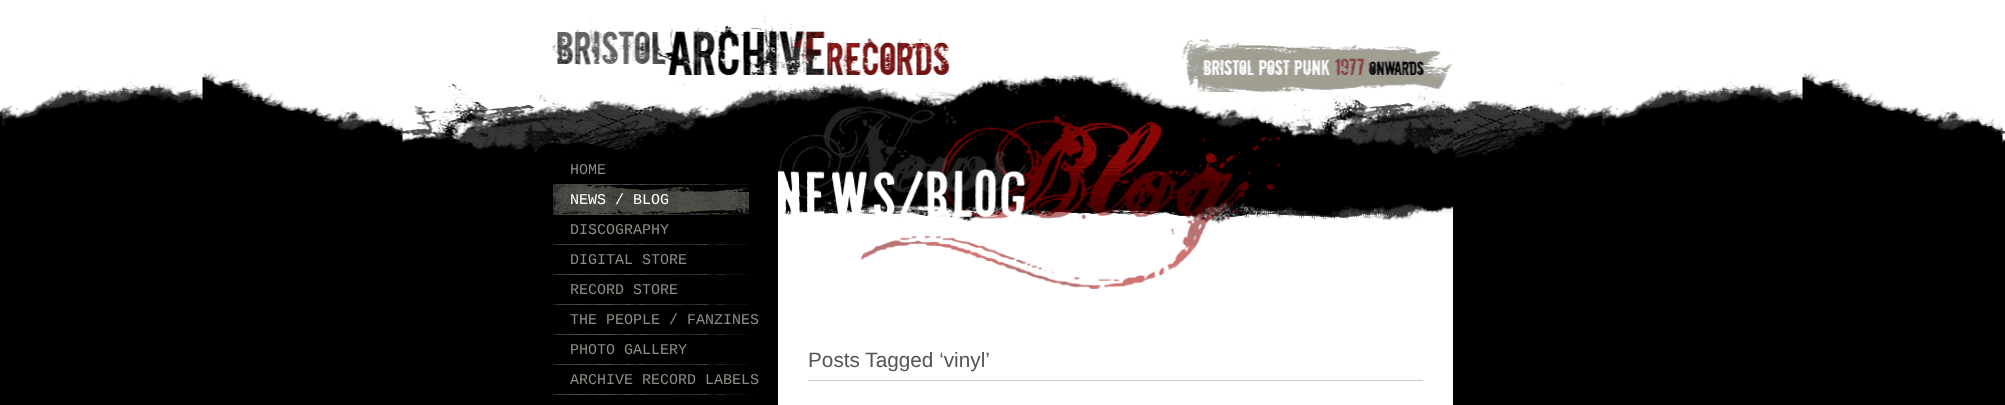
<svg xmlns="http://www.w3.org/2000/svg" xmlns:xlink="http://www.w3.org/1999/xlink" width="2005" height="405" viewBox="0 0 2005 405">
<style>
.cls-1{font:15px Liberation Mono;fill:#8d8d86}
.cls-2{font:15px Liberation Mono;fill:#ffffff}
.cls-3{font:20.75px Liberation Sans;fill:#555555}
</style>
<rect width="100%" height="100%" fill="#ffffff"/>
<image xlink:href="image0.png" x="0" y="14" width="2005" height="391"/>
<image xlink:href="image1.png" x="553" y="184" width="196" height="1"/>
<image xlink:href="image1.png" x="553" y="214" width="196" height="1"/>
<image xlink:href="image2.png" x="553" y="185" width="196" height="29"/>
<image xlink:href="image1.png" x="553" y="244" width="196" height="1"/>
<image xlink:href="image1.png" x="553" y="274" width="196" height="1"/>
<image xlink:href="image1.png" x="553" y="304" width="196" height="1"/>
<rect fill="#000000" x="777" y="316" width="1" height="89"/>
<image xlink:href="image1.png" x="553" y="334" width="196" height="1"/>
<image xlink:href="image1.png" x="553" y="364" width="196" height="1"/>
<image xlink:href="image1.png" x="553" y="394" width="196" height="1"/>
<rect fill="#ffffff" x="778" y="290" width="675" height="115"/>
<image xlink:href="image3.png" x="778" y="75" width="675" height="215"/>
<rect fill="#cccccc" x="808" y="380" width="615" height="1"/>
<text class="cls-1" x="570" y="174">HOME</text>
<text class="cls-2" x="570" y="204">NEWS / BLOG</text>
<text class="cls-1" x="570" y="234">DISCOGRAPHY</text>
<text class="cls-1" x="570" y="264">DIGITAL STORE</text>
<text class="cls-1" x="570" y="294">RECORD STORE</text>
<text class="cls-1" x="570" y="324">THE PEOPLE / FANZINES</text>
<text class="cls-1" x="570" y="354">PHOTO GALLERY</text>
<text class="cls-1" x="570" y="384">ARCHIVE RECORD LABELS</text>
<text class="cls-3" x="808" y="367">Posts Tagged ‘vinyl’</text>
</svg>
